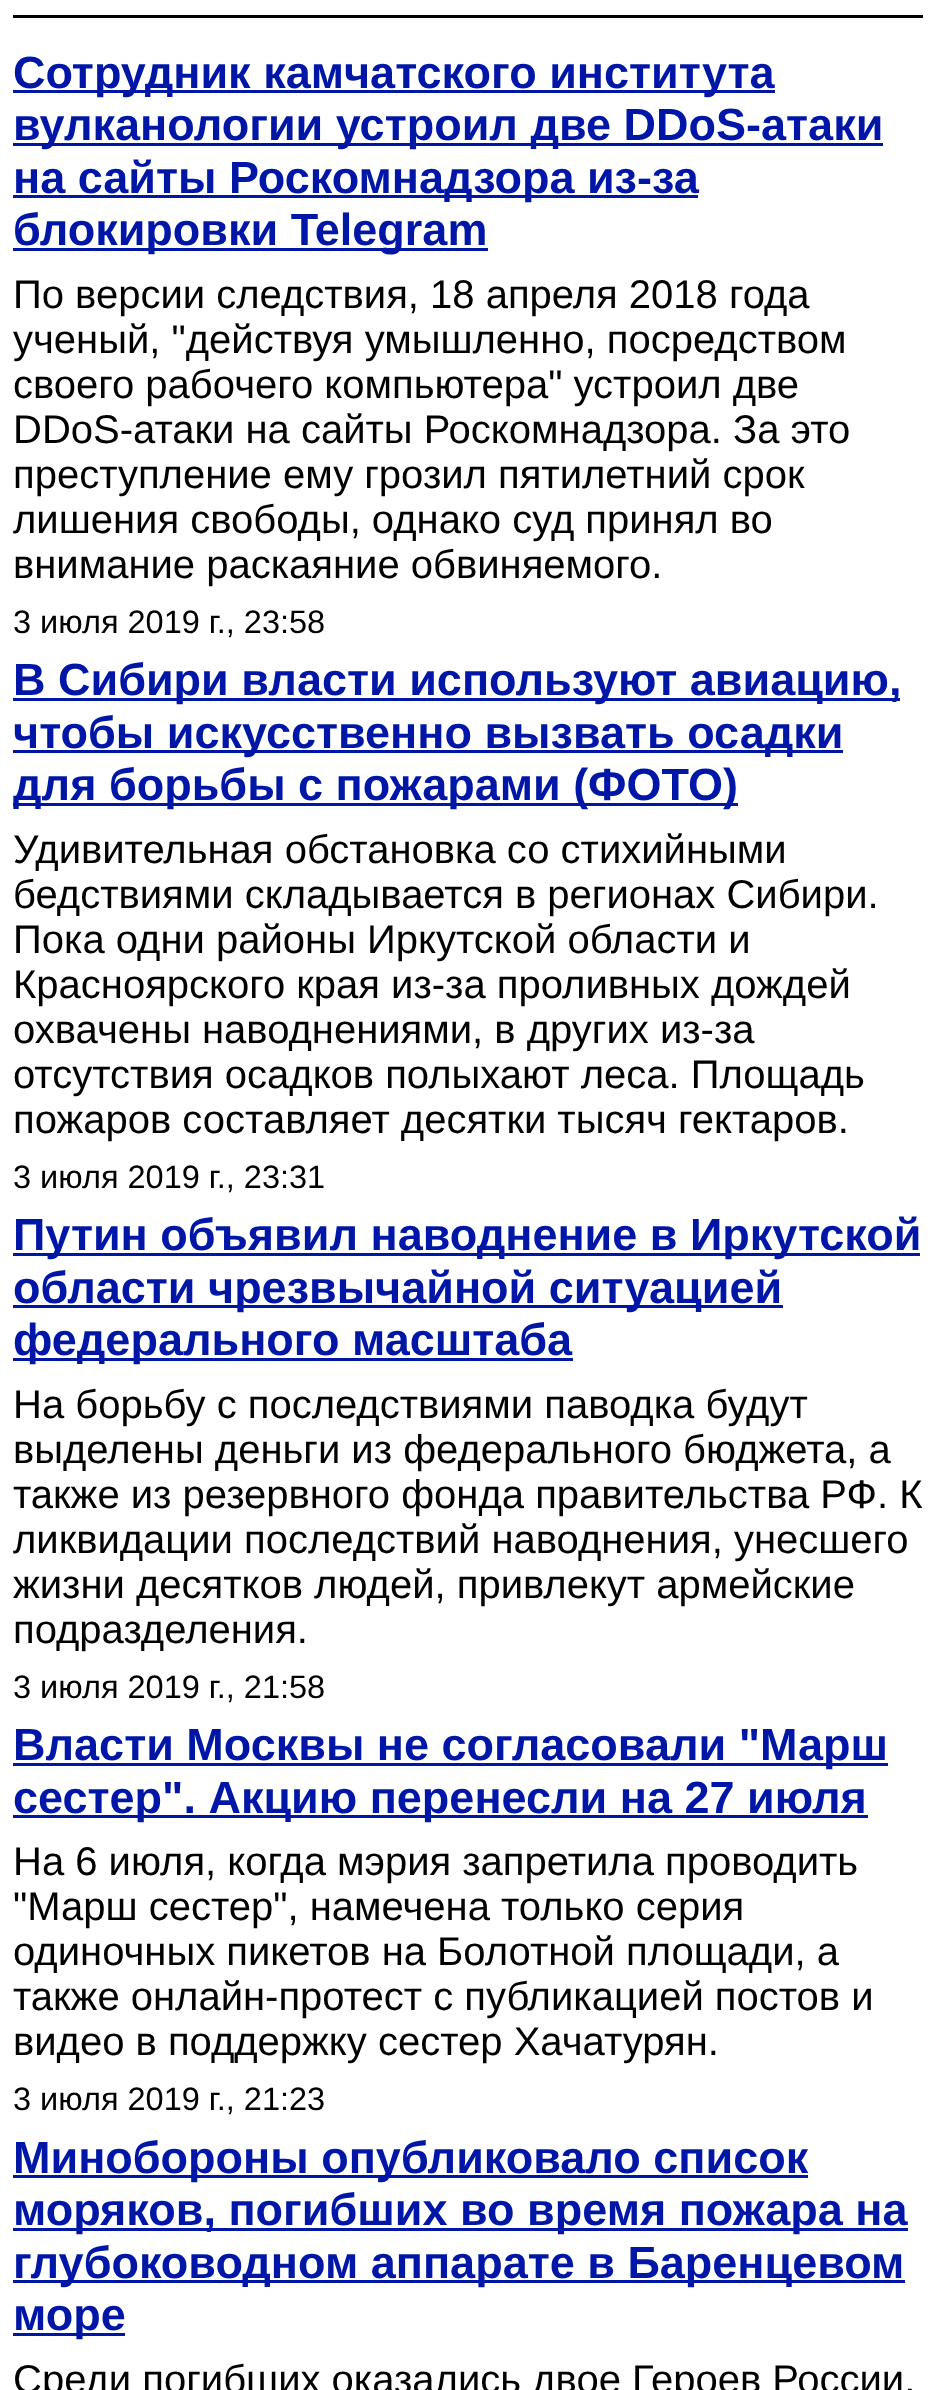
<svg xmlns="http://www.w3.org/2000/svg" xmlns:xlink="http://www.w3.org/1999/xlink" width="934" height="2390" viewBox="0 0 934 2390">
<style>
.cls-1{font:bold 45px Liberation Sans;fill:#0016a6}
.cls-2{font:40px Liberation Sans;fill:#000000}
.cls-3{font:32.5px Liberation Sans;fill:#000000}
</style>
<rect width="100%" height="100%" fill="#ffffff"/>
<rect fill="#000000" x="13" y="15" width="910" height="3"/>
<rect fill="#0016a6" x="13" y="90" width="762" height="3"/>
<rect fill="#0016a6" x="13" y="143" width="870" height="3"/>
<rect fill="#0016a6" x="13" y="195" width="685" height="3"/>
<rect fill="#0016a6" x="13" y="248" width="475" height="3"/>
<rect fill="#0016a6" x="13" y="698" width="887" height="3"/>
<rect fill="#0016a6" x="13" y="750" width="830" height="3"/>
<rect fill="#0016a6" x="13" y="803" width="725" height="3"/>
<rect fill="#0016a6" x="13" y="1253" width="907" height="3"/>
<rect fill="#0016a6" x="13" y="1305" width="770" height="3"/>
<rect fill="#0016a6" x="13" y="1358" width="560" height="3"/>
<rect fill="#0016a6" x="13" y="1763" width="875" height="3"/>
<rect fill="#0016a6" x="13" y="1815" width="855" height="3"/>
<rect fill="#0016a6" x="13" y="2175" width="795" height="3"/>
<rect fill="#0016a6" x="13" y="2228" width="895" height="3"/>
<rect fill="#0016a6" x="13" y="2280" width="892" height="3"/>
<rect fill="#0016a6" x="13" y="2333" width="112" height="3"/>
<text class="cls-1"><tspan x="13" y="88">Сотрудник камчатского института</tspan><tspan x="13" y="140">вулканологии устроил две DDoS-атаки</tspan><tspan x="13" y="193">на сайты Роскомнадзора из-за</tspan><tspan x="13" y="245">блокировки Telegram</tspan></text>
<text class="cls-2"><tspan x="13" y="308">По версии следствия, 18 апреля 2018 года</tspan><tspan x="13" y="353">ученый, "действуя умышленно, посредством</tspan><tspan x="13" y="398">своего рабочего компьютера" устроил две</tspan><tspan x="13" y="443">DDoS-атаки на сайты Роскомнадзора. За это</tspan><tspan x="13" y="488">преступление ему грозил пятилетний срок</tspan><tspan x="13" y="533">лишения свободы, однако суд принял во</tspan><tspan x="13" y="578">внимание раскаяние обвиняемого.</tspan></text>
<text class="cls-3" x="13" y="633">3 июля 2019 г., 23:58</text>
<text class="cls-1"><tspan x="13" y="695">В Сибири власти используют авиацию,</tspan><tspan x="13" y="748">чтобы искусственно вызвать осадки</tspan><tspan x="13" y="800">для борьбы с пожарами (ФОТО)</tspan></text>
<text class="cls-2"><tspan x="13" y="863">Удивительная обстановка со стихийными</tspan><tspan x="13" y="908">бедствиями складывается в регионах Сибири.</tspan><tspan x="13" y="953">Пока одни районы Иркутской области и</tspan><tspan x="13" y="998">Красноярского края из-за проливных дождей</tspan><tspan x="13" y="1043">охвачены наводнениями, в других из-за</tspan><tspan x="13" y="1088">отсутствия осадков полыхают леса. Площадь</tspan><tspan x="13" y="1133">пожаров составляет десятки тысяч гектаров.</tspan></text>
<text class="cls-3" x="13" y="1188">3 июля 2019 г., 23:31</text>
<text class="cls-1"><tspan x="13" y="1250">Путин объявил наводнение в Иркутской</tspan><tspan x="13" y="1303">области чрезвычайной ситуацией</tspan><tspan x="13" y="1355">федерального масштаба</tspan></text>
<text class="cls-2"><tspan x="13" y="1418">На борьбу с последствиями паводка будут</tspan><tspan x="13" y="1463">выделены деньги из федерального бюджета, а</tspan><tspan x="13" y="1508">также из резервного фонда правительства РФ. К</tspan><tspan x="13" y="1553">ликвидации последствий наводнения, унесшего</tspan><tspan x="13" y="1598">жизни десятков людей, привлекут армейские</tspan><tspan x="13" y="1643">подразделения.</tspan></text>
<text class="cls-3" x="13" y="1698">3 июля 2019 г., 21:58</text>
<text class="cls-1"><tspan x="13" y="1760">Власти Москвы не согласовали "Марш</tspan><tspan x="13" y="1813">сестер". Акцию перенесли на 27 июля</tspan></text>
<text class="cls-2"><tspan x="13" y="1875">На 6 июля, когда мэрия запретила проводить</tspan><tspan x="13" y="1920">"Марш сестер", намечена только серия</tspan><tspan x="13" y="1965">одиночных пикетов на Болотной площади, а</tspan><tspan x="13" y="2010">также онлайн-протест с публикацией постов и</tspan><tspan x="13" y="2055">видео в поддержку сестер Хачатурян.</tspan></text>
<text class="cls-3" x="13" y="2110">3 июля 2019 г., 21:23</text>
<text class="cls-1"><tspan x="13" y="2173">Минобороны опубликовало список</tspan><tspan x="13" y="2225">моряков, погибших во время пожара на</tspan><tspan x="13" y="2278">глубоководном аппарате в Баренцевом</tspan><tspan x="13" y="2330">море</tspan></text>
<text class="cls-2" x="13" y="2393">Среди погибших оказались двое Героев России,</text>
</svg>
